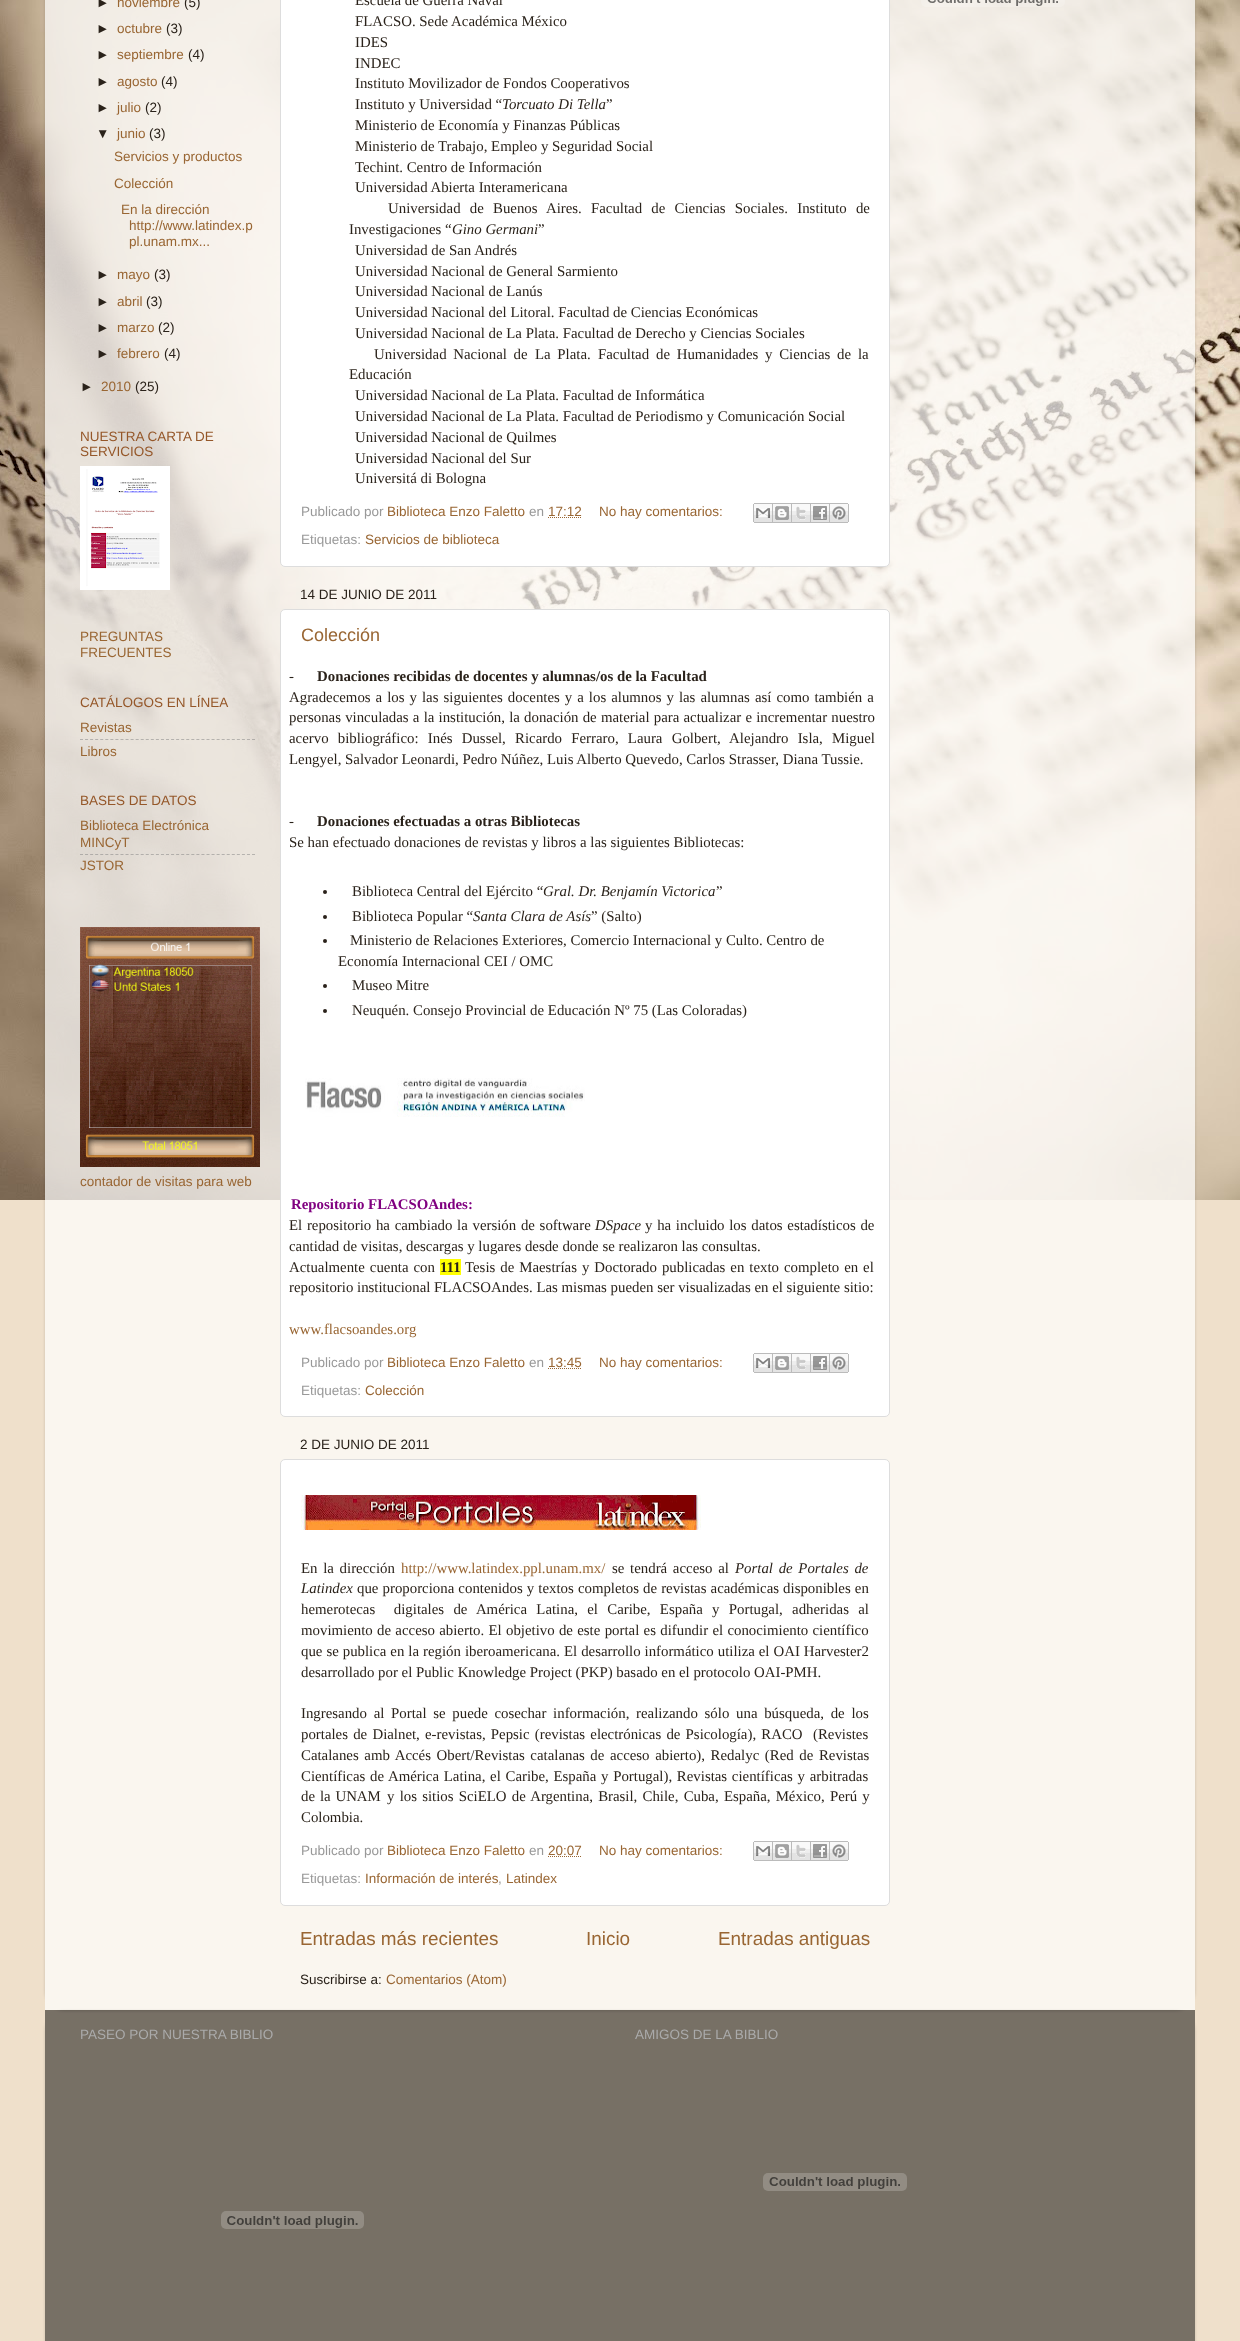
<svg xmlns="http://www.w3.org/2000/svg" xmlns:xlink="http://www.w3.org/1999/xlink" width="1240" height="2341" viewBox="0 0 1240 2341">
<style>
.cls-1{font:13.5px Liberation Sans;fill:#2a221a}
.cls-2{font:13.5px Liberation Sans;fill:#996633}
.cls-3{font:13.5px Liberation Sans;fill:#955729}
.cls-4{font:14.85px Liberation Serif;fill:#2a221a}
.cls-5{font:italic 14.85px Liberation Serif;fill:#2a221a}
.cls-6{font:13.5px Liberation Sans;fill:#999999}
.cls-7{font:18px Liberation Sans;fill:#996633}
.cls-8{font:bold 14.85px Liberation Serif;fill:#2a221a}
.cls-9{font:bold 14.85px Liberation Serif;fill:#800080}
.cls-10{font:14.85px Liberation Serif;fill:#996633}
.cls-11{font:18.9px Liberation Sans;fill:#996633}
.cls-12{font:13.5px Liberation Sans;fill:#aaaaaa}
</style>
<defs>
<clipPath id="clip1"><path d="M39 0H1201V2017H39ZM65-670H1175C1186-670 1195-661 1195-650V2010H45V-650C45-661 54-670 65-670Z" clip-rule="evenodd"/></clipPath>
<clipPath id="clip2"><path d="M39 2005H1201V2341H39ZM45 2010H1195V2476C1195 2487 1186 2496 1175 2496H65C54 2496 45 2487 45 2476Z" clip-rule="evenodd"/></clipPath>
</defs>
<rect width="100%" height="100%" fill="#efe0cb"/>
<rect fill="#faf6ef" x="45" y="1200" width="1150" height="810"/>
<image xlink:href="image0.png" x="0" y="0" width="1240" height="1200"/>
<g clip-path="url(#clip1)">
<rect fill="#000000" fill-opacity="0.15" filter="blur(1.5px)" x="45" y="-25" width="1150" height="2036" rx="20"/>
</g>
<image xlink:href="image1.png" x="80" y="466" width="90" height="124"/>
<path fill="none" stroke="#808080" stroke-opacity="0.5" stroke-dasharray="3 2.06" d="M80 739.5H255"/>
<path fill="none" stroke="#808080" stroke-opacity="0.5" stroke-dasharray="3 2.06" d="M80 854.5H255"/>
<image xlink:href="image2.png" x="80" y="927" width="180" height="240"/>
<rect fill="#ffffff" stroke="#dddddd" x="280.5" y="-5.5" width="609" height="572" rx="4.5"/>
<path fill="none" stroke="#996633" stroke-dasharray="1 1" d="M548 517.5H582"/>
<image xlink:href="image3.png" x="753" y="503" width="20" height="20"/>
<image xlink:href="image4.png" x="773" y="503" width="19" height="20"/>
<image xlink:href="image5.png" x="792" y="503" width="19" height="20"/>
<image xlink:href="image6.png" x="811" y="503" width="19" height="20"/>
<image xlink:href="image7.png" x="830" y="503" width="19" height="20"/>
<rect fill="#ffffff" stroke="#dddddd" x="280.5" y="609.5" width="609" height="807" rx="4.5"/>
<circle fill="#2a221a" cx="325" cy="892" r="2"/>
<circle fill="#2a221a" cx="325" cy="917" r="2"/>
<circle fill="#2a221a" cx="325" cy="941" r="2"/>
<circle fill="#2a221a" cx="325" cy="986" r="2"/>
<circle fill="#2a221a" cx="325" cy="1011" r="2"/>
<image xlink:href="image8.png" x="305" y="1078" width="280" height="39"/>
<rect fill="#ffff00" x="440" y="1259" width="21" height="16"/>
<path fill="none" stroke="#996633" stroke-dasharray="1 1" d="M548 1368.5H582"/>
<image xlink:href="image3.png" x="753" y="1353" width="20" height="20"/>
<image xlink:href="image4.png" x="773" y="1353" width="19" height="20"/>
<image xlink:href="image5.png" x="792" y="1353" width="19" height="20"/>
<image xlink:href="image6.png" x="811" y="1353" width="19" height="20"/>
<image xlink:href="image7.png" x="830" y="1353" width="19" height="20"/>
<rect fill="#ffffff" stroke="#dddddd" x="280.5" y="1459.5" width="609" height="446" rx="4.5"/>
<image xlink:href="image9.png" x="301" y="1495" width="400" height="35"/>
<path fill="none" stroke="#996633" stroke-dasharray="1 1" d="M548 1856.5H582"/>
<image xlink:href="image3.png" x="753" y="1841" width="20" height="20"/>
<image xlink:href="image4.png" x="773" y="1841" width="19" height="20"/>
<image xlink:href="image5.png" x="792" y="1841" width="19" height="20"/>
<image xlink:href="image6.png" x="811" y="1841" width="19" height="20"/>
<image xlink:href="image7.png" x="830" y="1841" width="19" height="20"/>
<image xlink:href="image10.png" x="921" y="0" width="144" height="7"/>
<g clip-path="url(#clip2)">
<rect fill="#000000" fill-opacity="0.15" filter="blur(1.5px)" x="45" y="2011" width="1150" height="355" rx="20"/>
</g>
<rect fill="#000000" fill-opacity="0.5" x="45" y="2010" width="1150" height="331"/>
<image xlink:href="image11.png" x="221" y="2211" width="143" height="18"/>
<image xlink:href="image12.png" x="763" y="2173" width="144" height="18"/>
<text class="cls-1" x="96" y="7">►</text>
<text class="cls-2" x="117" y="7">noviembre</text>
<text class="cls-1" x="184" y="7">(5)</text>
<text class="cls-1" x="96" y="33">►</text>
<text class="cls-2" x="117" y="33">octubre</text>
<text class="cls-1" x="166" y="33">(3)</text>
<text class="cls-1" x="96" y="59">►</text>
<text class="cls-2" x="117" y="59">septiembre</text>
<text class="cls-1" x="188" y="59">(4)</text>
<text class="cls-1" x="96" y="86">►</text>
<text class="cls-2" x="117" y="86">agosto</text>
<text class="cls-1" x="161" y="86">(4)</text>
<text class="cls-1" x="96" y="112">►</text>
<text class="cls-2" x="117" y="112">julio</text>
<text class="cls-1" x="145" y="112">(2)</text>
<text class="cls-1" x="96" y="138">▼</text>
<text class="cls-2" x="117" y="138">junio</text>
<text class="cls-1" x="149" y="138">(3)</text>
<text class="cls-2" x="114" y="161">Servicios y productos</text>
<text class="cls-2" x="114" y="188">Colección</text>
<text class="cls-2" x="121" y="214">En la dirección</text>
<text class="cls-2"><tspan x="129" y="230">http://www.latindex.p</tspan><tspan x="129" y="246">pl.unam.mx...</tspan></text>
<text class="cls-1" x="96" y="279">►</text>
<text class="cls-2" x="117" y="279">mayo</text>
<text class="cls-1" x="154" y="279">(3)</text>
<text class="cls-1" x="96" y="306">►</text>
<text class="cls-2" x="117" y="306">abril</text>
<text class="cls-1" x="146" y="306">(3)</text>
<text class="cls-1" x="96" y="332">►</text>
<text class="cls-2" x="117" y="332">marzo</text>
<text class="cls-1" x="158" y="332">(2)</text>
<text class="cls-1" x="96" y="358">►</text>
<text class="cls-2" x="117" y="358">febrero</text>
<text class="cls-1" x="164" y="358">(4)</text>
<text class="cls-1" x="80" y="391">►</text>
<text class="cls-2" x="101" y="391">2010</text>
<text class="cls-1" x="135" y="391">(25)</text>
<text class="cls-3"><tspan x="80" y="441">NUESTRA CARTA DE</tspan><tspan x="80" y="456">SERVICIOS</tspan></text>
<text class="cls-2"><tspan x="80" y="641">PREGUNTAS</tspan><tspan x="80" y="657">FRECUENTES</tspan></text>
<text class="cls-3" x="80" y="707">CATÁLOGOS EN LÍNEA</text>
<text class="cls-2"><tspan x="80" y="732">Revistas</tspan><tspan x="80" y="756">Libros</tspan></text>
<text class="cls-3" x="80" y="805">BASES DE DATOS</text>
<text class="cls-2"><tspan x="80" y="830">Biblioteca Electrónica</tspan><tspan x="80" y="847">MINCyT</tspan><tspan x="80" y="870">JSTOR</tspan></text>
<text class="cls-2" x="80" y="1186">contador de visitas para web</text>
<text class="cls-4"><tspan x="355" y="5">Escuela de Guerra Naval</tspan><tspan x="355" y="26">FLACSO. Sede Académica México</tspan><tspan x="355" y="47">IDES</tspan><tspan x="355" y="68">INDEC</tspan><tspan x="355" y="88">Instituto Movilizador de Fondos Cooperativos</tspan><tspan x="355" y="109">Instituto y Universidad “</tspan></text>
<text class="cls-5" x="502" y="109">Torcuato Di Tella</text>
<text class="cls-4" x="606" y="109">”</text>
<text class="cls-4"><tspan x="355" y="130">Ministerio de Economía y Finanzas Públicas</tspan><tspan x="355" y="151">Ministerio de Trabajo, Empleo y Seguridad Social</tspan><tspan x="355" y="172">Techint. Centro de Información</tspan><tspan x="355" y="192">Universidad Abierta Interamericana</tspan></text>
<text class="cls-4" x="388" y="213" word-spacing="5.5">Universidad de Buenos Aires. Facultad de Ciencias Sociales. Instituto de</text>
<text class="cls-4" x="349" y="234">Investigaciones “</text>
<text class="cls-5" x="452" y="234">Gino Germani</text>
<text class="cls-4" x="538" y="234">”</text>
<text class="cls-4"><tspan x="355" y="255">Universidad de San Andrés</tspan><tspan x="355" y="276">Universidad Nacional de General Sarmiento</tspan><tspan x="355" y="296">Universidad Nacional de Lanús</tspan><tspan x="355" y="317">Universidad Nacional del Litoral. Facultad de Ciencias Económicas</tspan><tspan x="355" y="338">Universidad Nacional de La Plata. Facultad de Derecho y Ciencias Sociales</tspan></text>
<text class="cls-4" x="374" y="359" word-spacing="3">Universidad Nacional de</text>
<text class="cls-4" x="535" y="359" word-spacing="3">La Plata.</text>
<text class="cls-4" x="598" y="359">Facultad</text>
<text class="cls-4" x="656" y="359" word-spacing="3">de Humanidades y Ciencias de</text>
<text class="cls-4" x="858" y="359">la</text>
<text class="cls-4" x="349" y="379">Educación</text>
<text class="cls-4"><tspan x="355" y="400">Universidad Nacional de La Plata. Facultad de Informática</tspan><tspan x="355" y="421">Universidad Nacional de La Plata. Facultad de Periodismo y Comunicación Social</tspan><tspan x="355" y="442">Universidad Nacional de Quilmes</tspan><tspan x="355" y="463">Universidad Nacional del Sur</tspan><tspan x="355" y="483">Universitá di Bologna</tspan></text>
<text class="cls-6" x="301" y="516">Publicado por</text>
<text class="cls-2" x="387" y="516">Biblioteca Enzo Faletto</text>
<text class="cls-6" x="529" y="516">en</text>
<text class="cls-2" x="548" y="516">17:12</text>
<text class="cls-2" x="599" y="516">No hay comentarios:</text>
<text class="cls-6" x="301" y="544">Etiquetas:</text>
<text class="cls-2" x="365" y="544">Servicios de biblioteca</text>
<text class="cls-1" x="300" y="599">14 DE JUNIO DE 2011</text>
<text class="cls-7" x="301" y="641">Colección</text>
<text class="cls-4" x="289" y="681">-</text>
<text class="cls-8" x="317" y="681">Donaciones recibidas de docentes y alumnas/os de la Facultad</text>
<text class="cls-4"><tspan x="289" y="702" word-spacing="1.3">Agradecemos a los y las siguientes docentes y a los alumnos y las alumnas así como también a</tspan><tspan x="289" y="722" word-spacing="0.5">personas vinculadas a la institución, la donación de material para actualizar e incrementar nuestro</tspan><tspan x="289" y="743" word-spacing="5.5">acervo bibliográfico: Inés Dussel, Ricardo Ferraro, Laura Golbert, Alejandro Isla, Miguel</tspan><tspan x="289" y="764">Lengyel, Salvador Leonardi, Pedro Núñez, Luis Alberto Quevedo, Carlos Strasser, Diana Tussie.</tspan></text>
<text class="cls-4" x="289" y="826">-</text>
<text class="cls-8" x="317" y="826">Donaciones efectuadas a otras Bibliotecas</text>
<text class="cls-4" x="289" y="847">Se han efectuado donaciones de revistas y libros a las siguientes Bibliotecas:</text>
<text class="cls-4" x="352" y="896">Biblioteca Central del Ejército “</text>
<text class="cls-5" x="543" y="896">Gral. Dr. Benjamín Victorica</text>
<text class="cls-4" x="716" y="896">”</text>
<text class="cls-4" x="352" y="921">Biblioteca Popular “</text>
<text class="cls-5" x="473" y="921">Santa Clara de Asís</text>
<text class="cls-4" x="591" y="921">” (Salto)</text>
<text class="cls-4" x="350" y="945">Ministerio de Relaciones Exteriores, Comercio Internacional y Culto. Centro de</text>
<text class="cls-4" x="338" y="966">Economía Internacional CEI / OMC</text>
<text class="cls-4"><tspan x="352" y="990">Museo Mitre</tspan><tspan x="352" y="1015">Neuquén. Consejo Provincial de Educación Nº 75 (Las Coloradas)</tspan></text>
<text class="cls-9" x="291" y="1209">Repositorio FLACSOAndes:</text>
<text class="cls-4" x="289" y="1230" word-spacing="1">El repositorio ha cambiado la versión de software</text>
<text class="cls-5" x="595" y="1230">DSpace</text>
<text class="cls-4" x="645" y="1230" word-spacing="1">y ha incluido los datos estadísticos de</text>
<text class="cls-4"><tspan x="289" y="1251">cantidad de visitas, descargas y lugares desde donde se realizaron las consultas.</tspan><tspan x="289" y="1272" word-spacing="1.25">Actualmente cuenta con</tspan></text>
<text class="cls-8" x="440" y="1272">111</text>
<text class="cls-4" x="465" y="1272" word-spacing="1.25">Tesis de Maestrías y Doctorado publicadas en texto completo en el</text>
<text class="cls-4" x="289" y="1292">repositorio institucional FLACSOAndes. Las mismas pueden ser visualizadas en el siguiente sitio:</text>
<text class="cls-10" x="289" y="1334">www.flacsoandes.org</text>
<text class="cls-6" x="301" y="1367">Publicado por</text>
<text class="cls-2" x="387" y="1367">Biblioteca Enzo Faletto</text>
<text class="cls-6" x="529" y="1367">en</text>
<text class="cls-2" x="548" y="1367">13:45</text>
<text class="cls-2" x="599" y="1367">No hay comentarios:</text>
<text class="cls-6" x="301" y="1395">Etiquetas:</text>
<text class="cls-2" x="365" y="1395">Colección</text>
<text class="cls-1" x="300" y="1449">2 DE JUNIO DE 2011</text>
<text class="cls-4" x="301" y="1573" word-spacing="2">En la dirección</text>
<text class="cls-10" x="401" y="1573">http://www.latindex.ppl.unam.mx/</text>
<text class="cls-4" x="612" y="1573" word-spacing="2">se tendrá acceso al</text>
<text class="cls-5" x="735" y="1573" word-spacing="2">Portal de Portales de</text>
<text class="cls-5" x="301" y="1593">Latindex</text>
<text class="cls-4" x="357" y="1593" word-spacing="0.4">que proporciona contenidos y textos completos de revistas académicas disponibles en</text>
<text class="cls-4" xml:space="preserve"><tspan x="301" y="1614" word-spacing="5.6">hemerotecas  digitales de América Latina, el Caribe, España y Portugal, adheridas al</tspan><tspan x="301" y="1635" word-spacing="0.6">movimiento de acceso abierto. El objetivo de este portal es difundir el conocimiento científico</tspan><tspan x="301" y="1656" word-spacing="0.25">que se publica en la región iberoamericana. El desarrollo informático utiliza el OAI Harvester2</tspan><tspan x="301" y="1677">desarrollado por el Public Knowledge Project (PKP) basado en el protocolo OAI-PMH.</tspan></text>
<text class="cls-4" xml:space="preserve"><tspan x="301" y="1718" word-spacing="3">Ingresando al Portal se puede cosechar información, realizando sólo una búsqueda, de los</tspan><tspan x="301" y="1739" word-spacing="1.5">portales de Dialnet, e-revistas, Pepsic (revistas electrónicas de Psicología), RACO  (Revistes</tspan><tspan x="301" y="1760" word-spacing="1.9">Catalanes amb Accés Obert/Revistas catalanas de acceso abierto), Redalyc (Red de Revistas</tspan><tspan x="301" y="1781" word-spacing="1">Científicas de América Latina, el Caribe, España y Portugal), Revistas científicas y arbitradas</tspan><tspan x="301" y="1801">de</tspan></text>
<text class="cls-4" x="320" y="1801" word-spacing="1">la UNAM</text>
<text class="cls-4" x="387" y="1801" word-spacing="1.5">y los sitios SciELO de Argentina, Brasil, Chile, Cuba, España, México, Perú y</text>
<text class="cls-4" x="301" y="1822">Colombia.</text>
<text class="cls-6" x="301" y="1855">Publicado por</text>
<text class="cls-2" x="387" y="1855">Biblioteca Enzo Faletto</text>
<text class="cls-6" x="529" y="1855">en</text>
<text class="cls-2" x="548" y="1855">20:07</text>
<text class="cls-2" x="599" y="1855">No hay comentarios:</text>
<text class="cls-6" x="301" y="1883">Etiquetas:</text>
<text class="cls-2" x="365" y="1883">Información de interés</text>
<text class="cls-6" x="498" y="1883">,</text>
<text class="cls-2" x="506" y="1883">Latindex</text>
<text class="cls-11" x="300" y="1945">Entradas más recientes</text>
<text class="cls-11" x="586" y="1945">Inicio</text>
<text class="cls-11" x="718" y="1945">Entradas antiguas</text>
<text class="cls-1" x="300" y="1984">Suscribirse a:</text>
<text class="cls-2" x="386" y="1984">Comentarios (Atom)</text>
<text class="cls-12" x="80" y="2039">PASEO POR NUESTRA BIBLIO</text>
<text class="cls-12" x="635" y="2039">AMIGOS DE LA BIBLIO</text>
</svg>
